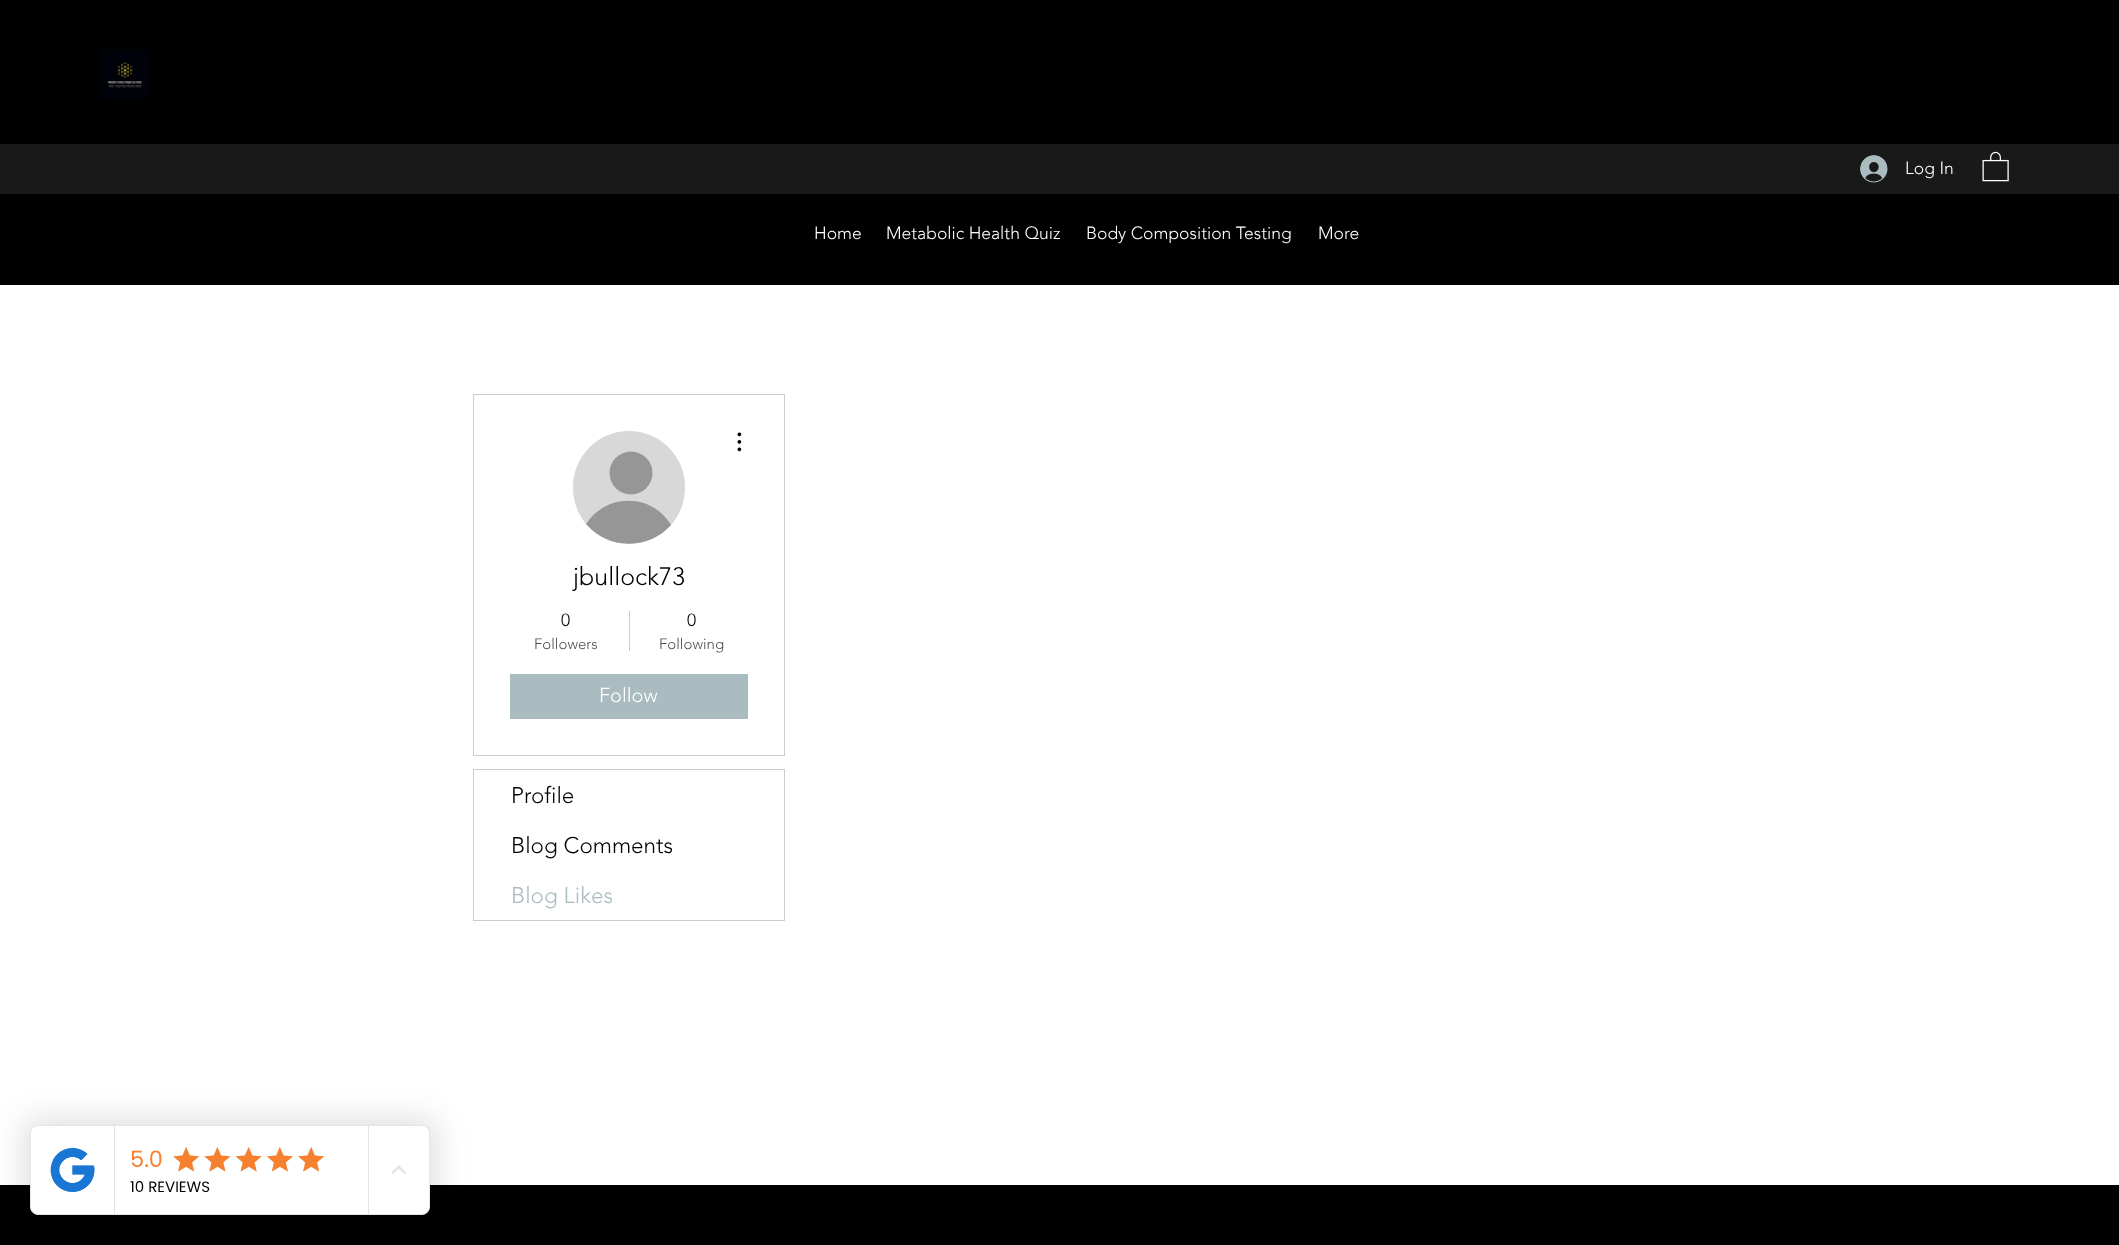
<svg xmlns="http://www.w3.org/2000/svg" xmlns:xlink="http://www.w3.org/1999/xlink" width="2119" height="1245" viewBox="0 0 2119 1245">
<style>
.cls-1{font:300 17.5px 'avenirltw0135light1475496';fill:#ffffff}
.cls-2{font:300 25px 'avenirltw0135light1475496';fill:#000000}
.cls-3{font:300 17.5px 'avenirltw0135light1475496';fill:#000000}
.cls-4{font:300 15px 'avenirltw0135light1475496';fill:#4d4d4d}
.cls-5{font:300 20px 'avenirltw0135light1475496';fill:#ffffff}
.cls-6{font:300 22.5px 'avenirltw0135light1475496';fill:#000000}
.cls-7{font:300 22.5px 'avenirltw0135light1475496';fill:#aabcbf}
.cls-8{font:22.5px Poppins;fill:#f7802f}
.cls-9{font:15px Poppins;fill:#000000}
</style>
<rect width="100%" height="100%" fill="#ffffff"/>
<rect fill="#000000" x="0" y="0" width="2119" height="285"/>
<image xlink:href="image0.png" x="100" y="50" width="50" height="50"/>
<rect fill="#191919" x="0" y="144" width="2119" height="50"/>
<image xlink:href="image1.png" x="1860" y="155" width="28" height="28"/>
<image xlink:href="image2.png" x="1982" y="151" width="27" height="31"/>
<rect fill="none" stroke="#cccccc" x="473.5" y="394.5" width="311" height="361"/>
<rect fill="#d8d8d8" x="573" y="431" width="112" height="113" rx="56"/>
<circle fill="#969696" cx="631" cy="473" r="21.5"/>
<path fill="#969696" d="M671 525C649 550 608 550 586 524C606 493 652 493 671 525Z"/>
<image xlink:href="image3.png" x="737" y="432" width="5" height="20"/>
<rect fill="#cccccc" x="629" y="611" width="1" height="40"/>
<rect fill="#aabcbf" x="510" y="674" width="238" height="45"/>
<rect fill="none" stroke="#cccccc" x="473.5" y="769.5" width="311" height="151"/>
<rect fill="#000000" x="0" y="1185" width="2119" height="60"/>
<rect fill="#000000" fill-opacity="0.12" filter="blur(15px)" x="23" y="1118" width="415" height="105" rx="15"/>
<rect fill="#ffffff" stroke="#e5e5e5" x="30.5" y="1125.5" width="399" height="89" rx="7.5"/>
<path fill="#ffffff" d="M39 1126H115V1214H39C34.5 1214 31 1210.5 31 1206V1134C31 1129.5 34.5 1126 39 1126Z"/>
<rect fill="#e5e5e5" x="114" y="1126" width="1" height="88"/>
<image xlink:href="image4.png" x="50" y="1148" width="45" height="44"/>
<rect fill="#e5e5e5" x="368" y="1126" width="1" height="88"/>
<image xlink:href="image5.png" x="173" y="1147" width="26" height="25"/>
<image xlink:href="image6.png" x="173" y="1147" width="26" height="25"/>
<image xlink:href="image7.png" x="204" y="1147" width="26" height="25"/>
<image xlink:href="image8.png" x="204" y="1147" width="27" height="25"/>
<image xlink:href="image10.png" x="236" y="1147" width="26" height="25"/>
<image xlink:href="image9.png" x="235" y="1147" width="27" height="25"/>
<image xlink:href="image11.png" x="267" y="1147" width="26" height="25"/>
<image xlink:href="image12.png" x="267" y="1147" width="26" height="25"/>
<image xlink:href="image5.png" x="298" y="1147" width="26" height="25"/>
<image xlink:href="image6.png" x="298" y="1147" width="26" height="25"/>
<image xlink:href="image13.png" x="391" y="1165" width="15" height="9"/>
<text class="cls-1" x="1905" y="174">Log In</text>
<text class="cls-1" x="814" y="239">Home</text>
<text class="cls-1" x="886" y="239">Metabolic Health Quiz</text>
<text class="cls-1" x="1086" y="239">Body Composition Testing</text>
<text class="cls-1" x="1318" y="239">More</text>
<text class="cls-2" x="573" y="585">jbullock73</text>
<text class="cls-3" x="561" y="626">0</text>
<text class="cls-4" x="534" y="649">Followers</text>
<text class="cls-3" x="687" y="626">0</text>
<text class="cls-4" x="659" y="649">Following</text>
<text class="cls-5" x="599" y="702">Follow</text>
<text class="cls-6" x="511" y="803">Profile</text>
<text class="cls-6" x="511" y="853">Blog Comments</text>
<text class="cls-7" x="511" y="903">Blog Likes</text>
<text class="cls-8" x="130" y="1167">5.0</text>
<text class="cls-9" x="130" y="1192">10 REVIEWS</text>
</svg>
